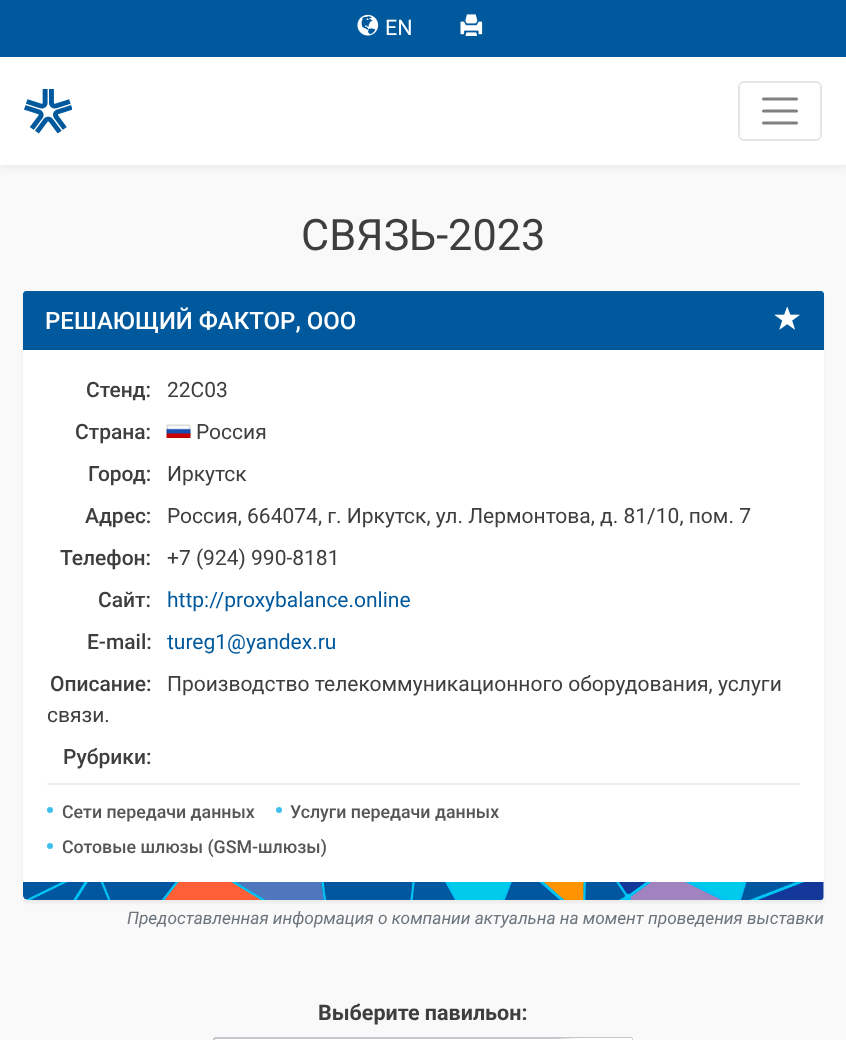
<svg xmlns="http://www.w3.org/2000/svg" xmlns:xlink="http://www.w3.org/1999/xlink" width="846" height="1040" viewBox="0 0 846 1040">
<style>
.cls-1{font:21.5px Roboto;fill:#ffffff}
.cls-2{font:43.25px Roboto;fill:#3e3e3e}
.cls-3{font:500 24px Roboto;fill:#ffffff}
.cls-4{font:500 21px Roboto;fill:#3e3e3e}
.cls-5{font:21px Roboto;fill:#3e3e3e}
.cls-6{font:21px Roboto;fill:#00599d}
.cls-7{font:500 17.8px Roboto;fill:#555555}
.cls-8{font:italic 17.3px Roboto;fill:#6c757d}
.cls-9{font:bold 21.5px Roboto;fill:#3e3e3e}
</style>
<defs>
<linearGradient id="g1" gradientUnits="userSpaceOnUse" x1="557" y1="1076" x2="632" y2="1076"><stop offset="0" stop-color="#ffffff" stop-opacity="0"/><stop offset="0.01" stop-color="#ffffff" stop-opacity="0"/><stop offset="0.13" stop-color="#ffffff" stop-opacity="0.56"/><stop offset="0.29" stop-color="#ffffff"/><stop offset="1" stop-color="#ffffff"/></linearGradient>
</defs>
<rect width="100%" height="100%" fill="#f9f9f9"/>
<rect fill="#000000" fill-opacity="0.07" filter="blur(4px)" x="0" y="2" width="846" height="165"/>
<rect fill="#ffffff" x="0" y="57" width="846" height="108"/>
<rect fill="#00599d" x="0" y="0" width="846" height="57"/>
<image xlink:href="image0.png" x="357" y="14" width="22" height="22"/>
<image xlink:href="image1.png" x="460" y="14" width="23" height="22"/>
<image xlink:href="image2.png" x="24" y="89" width="48" height="45"/>
<rect fill="none" stroke="#e6e6e6" stroke-width="2" x="739" y="82" width="82" height="58" rx="5"/>
<path fill="none" stroke="#808080" stroke-width="3" stroke-linecap="round" d="M763.5 99H796.5M763.5 111H796.5M763.5 123H796.5"/>
<rect fill="#000000" fill-opacity="0.06" filter="blur(1.5px)" x="23" y="294" width="801" height="609" rx="3"/>
<rect fill="#ffffff" x="23" y="291" width="801" height="609" rx="3"/>
<path fill="#00599d" d="M26 291H821C822.5 291 824 292.5 824 294V350H23V294C23 292.5 24.5 291 26 291Z"/>
<image xlink:href="image3.png" x="774" y="306" width="26" height="24"/>
<image xlink:href="image4.png" x="166" y="424" width="25" height="14"/>
<rect fill="#eeeeee" x="47" y="783" width="753" height="2"/>
<circle fill="#40bfef" cx="50" cy="810" r="3"/>
<circle fill="#40bfef" cx="279" cy="810" r="3"/>
<circle fill="#40bfef" cx="50" cy="846" r="3"/>
<image xlink:href="image5.png" x="22" y="882" width="802" height="18"/>
<rect fill="#ffffff" stroke="#c4c7cc" stroke-width="2" x="214" y="1038" width="418" height="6" rx="2"/>
<path fill="url(#g1)" d="M557 1038H630.5C631.5 1038 632 1038.5 632 1039.5V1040.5C632 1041.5 631.5 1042 630.5 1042H557Z"/>
<text class="cls-1" x="385" y="35">EN</text>
<text class="cls-2" x="301" y="250">СВЯЗЬ-2023</text>
<text class="cls-3" x="45" y="329">РЕШАЮЩИЙ ФАКТОР, ООО</text>
<text class="cls-4" x="86" y="397">Стенд:</text>
<text class="cls-5" x="167" y="397">22C03</text>
<text class="cls-4" x="75" y="439">Страна:</text>
<text class="cls-5" x="196" y="439">Россия</text>
<text class="cls-4" x="88" y="481">Город:</text>
<text class="cls-5" x="167" y="481">Иркутск</text>
<text class="cls-4" x="85" y="523">Адрес:</text>
<text class="cls-5" x="167" y="523">Россия, 664074, г. Иркутск, ул. Лермонтова, д. 81/10, пом. 7</text>
<text class="cls-4" x="60" y="565">Телефон:</text>
<text class="cls-5" x="167" y="565">+7 (924) 990-8181</text>
<text class="cls-4" x="98" y="607">Сайт:</text>
<text class="cls-6" x="167" y="607">http://proxybalance.online</text>
<text class="cls-4" x="87" y="649">E-mail:</text>
<text class="cls-6" x="167" y="649">tureg1@yandex.ru</text>
<text class="cls-5" x="167" y="691">Производство телекоммуникационного оборудования, услуги</text>
<text class="cls-5" x="47" y="722">связи.</text>
<text class="cls-4" x="50" y="691">Описание:</text>
<text class="cls-4" x="63" y="764">Рубрики:</text>
<text class="cls-7" x="62" y="818">Сети передачи данных</text>
<text class="cls-7" x="290" y="818">Услуги передачи данных</text>
<text class="cls-7" x="62" y="853">Сотовые шлюзы (GSM-шлюзы)</text>
<text class="cls-8" x="127" y="924">Предоставленная информация о компании актуальна на момент проведения выставки</text>
<text class="cls-9" x="318" y="1020">Выберите павильон:</text>
</svg>
